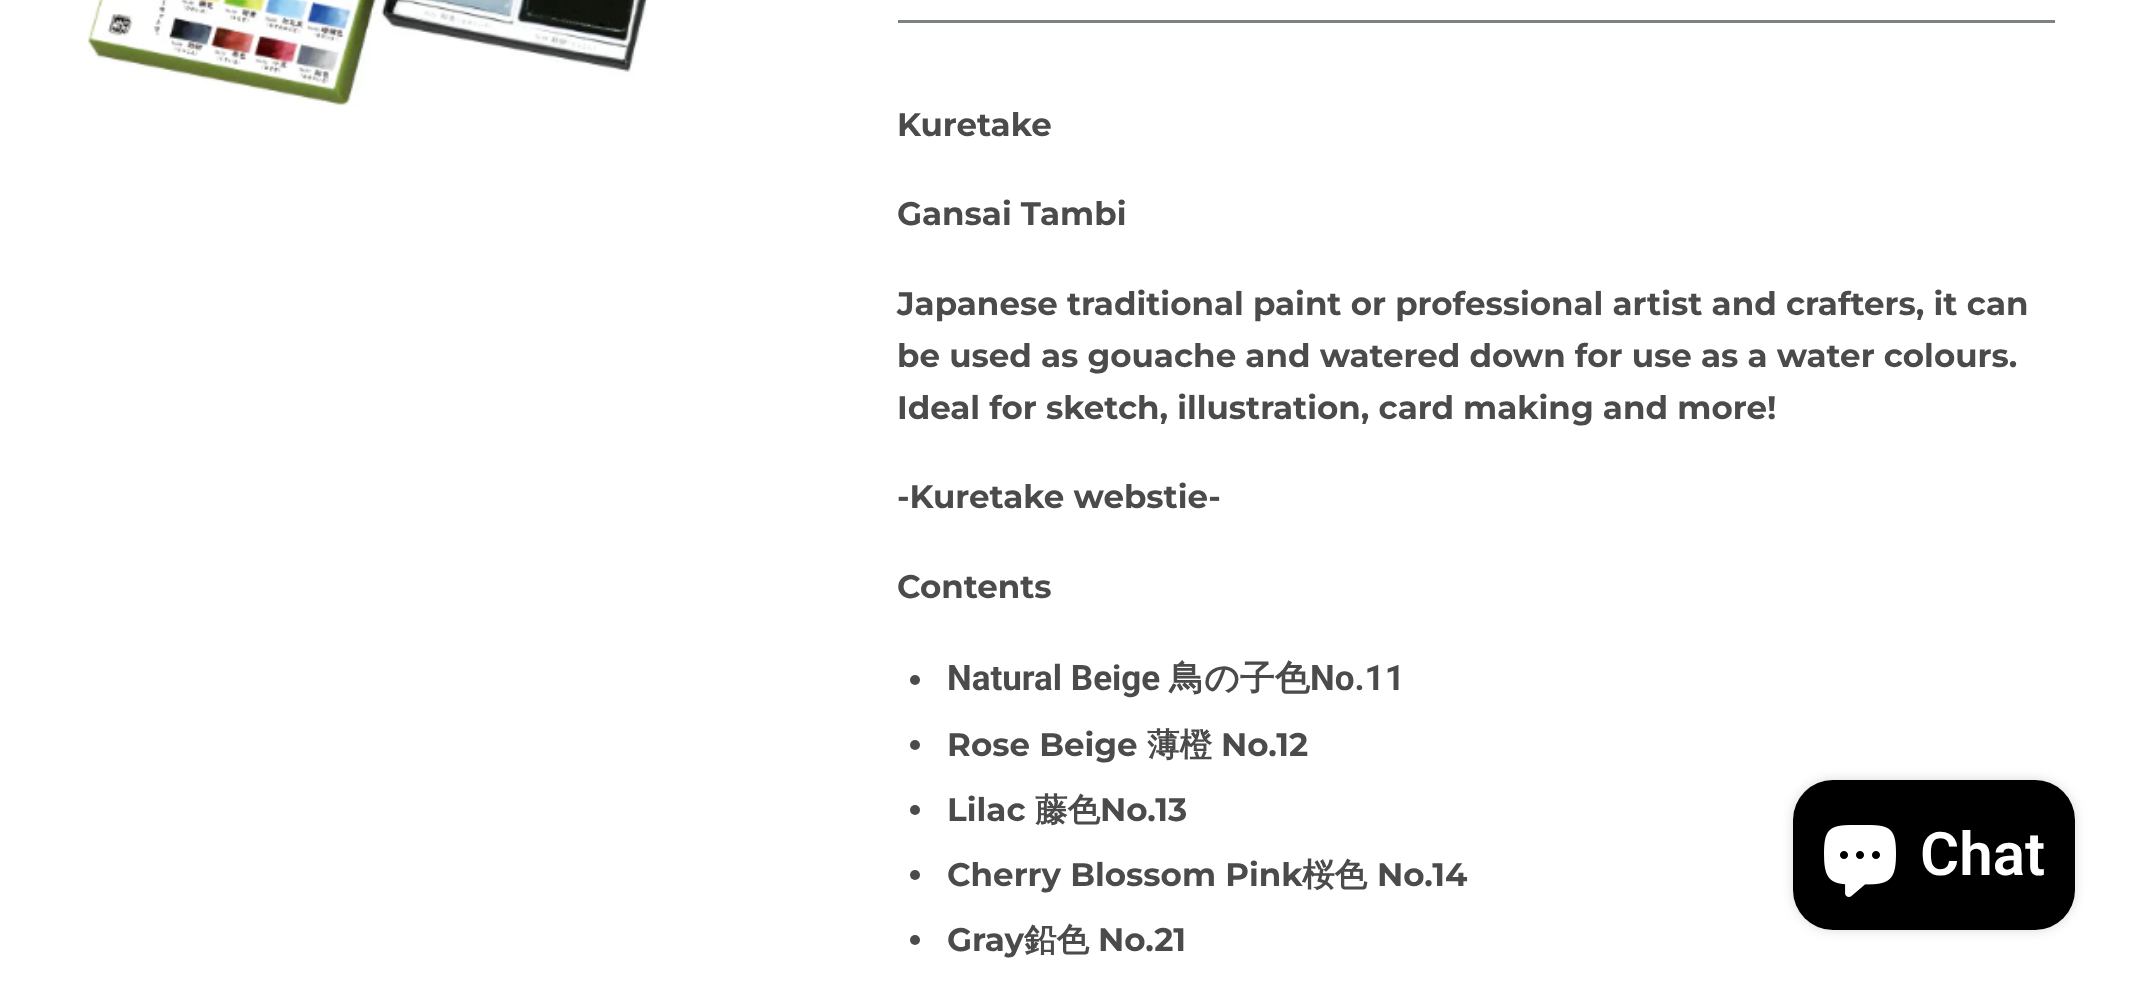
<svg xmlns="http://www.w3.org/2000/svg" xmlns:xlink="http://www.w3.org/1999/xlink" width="2129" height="981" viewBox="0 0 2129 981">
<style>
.cls-1{font:bold 32.5px Montserrat;fill:#4b4b4b}
.cls-2{font:bold 35px Roboto;fill:#4b4b4b}
.cls-3{font:bold 35px WenQuanYi Zen Hei;fill:#4b4b4b}
.cls-4{font:bold 32.5px WenQuanYi Zen Hei;fill:#4b4b4b}
.cls-5{font:600 60px Roboto;fill:#ffffff}
</style>
<rect width="100%" height="100%" fill="#ffffff"/>
<image xlink:href="image0.png" x="87" y="0" width="561" height="107"/>
<rect fill="#7a8284" x="898" y="20" width="1157" height="3"/>
<circle fill="#4b4b4b" cx="915" cy="680" r="5"/>
<circle fill="#4b4b4b" cx="915" cy="745" r="5"/>
<circle fill="#4b4b4b" cx="915" cy="810" r="5"/>
<circle fill="#4b4b4b" cx="915" cy="875" r="5"/>
<circle fill="#4b4b4b" cx="915" cy="940" r="5"/>
<rect fill="#000000" fill-opacity="0.15" filter="blur(6px)" x="1793" y="780" width="282" height="150" rx="40"/>
<rect fill="#000000" x="1793" y="780" width="282" height="150" rx="40"/>
<image xlink:href="image1.png" x="1824" y="825" width="72" height="72"/>
<text class="cls-1" x="897" y="136">Kuretake</text>
<text class="cls-1" x="897" y="225">Gansai Tambi</text>
<text class="cls-1"><tspan x="897" y="315">Japanese traditional paint or professional artist and crafters, it can</tspan><tspan x="897" y="367">be used as gouache and watered down for use as a water colours.</tspan><tspan x="897" y="419">Ideal for sketch, illustration, card making and more!</tspan></text>
<text class="cls-1" x="897" y="508">-Kuretake webstie-</text>
<text class="cls-1" x="897" y="598">Contents</text>
<text class="cls-2" x="947" y="690">Natural Beige</text>
<text class="cls-3" x="1169" y="690">鳥の子色</text>
<text class="cls-2" x="1310" y="690">No.11</text>
<text class="cls-1" x="947" y="756">Rose Beige</text>
<text class="cls-4" x="1147" y="756">薄橙</text>
<text class="cls-1" x="1221" y="756">No.12</text>
<text class="cls-1" x="947" y="821">Lilac</text>
<text class="cls-4" x="1035" y="821">藤色</text>
<text class="cls-1" x="1100" y="821">No.13</text>
<text class="cls-1" x="947" y="886">Cherry Blossom Pink</text>
<text class="cls-4" x="1302" y="886">桜色</text>
<text class="cls-1" x="1377" y="886">No.14</text>
<text class="cls-1" x="947" y="951">Gray</text>
<text class="cls-4" x="1024" y="951">鉛色</text>
<text class="cls-1" x="1098" y="951">No.21</text>
<text class="cls-5" x="1920" y="875">Chat</text>
</svg>
